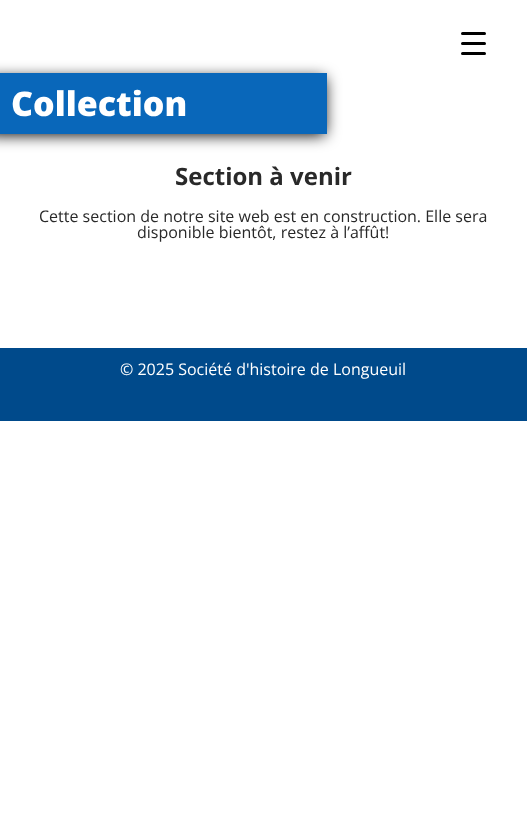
<svg xmlns="http://www.w3.org/2000/svg" xmlns:xlink="http://www.w3.org/1999/xlink" width="527" height="826" viewBox="0 0 527 826">
<style>
.cls-1{font:800 34px Open Sans;fill:#ffffff}
.cls-2{font:bold 24px Open Sans;fill:#292929}
.cls-3{font:16px Open Sans;fill:#292929}
.cls-4{font:16px Open Sans;fill:#ffffff}
</style>
<rect width="100%" height="100%" fill="#ffffff"/>
<rect fill="#000000" x="461" y="42" width="25" height="3" rx="1.5"/>
<rect fill="#000000" x="461" y="32" width="25" height="3" rx="1.5"/>
<rect fill="#000000" x="461" y="52" width="25" height="3" rx="1.5"/>
<rect fill="#000000" filter="blur(7.5px)" x="-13" y="78" width="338" height="57"/>
<rect fill="#0967ba" x="0" y="73" width="327" height="61"/>
<rect fill="#004a8b" x="0" y="348" width="527" height="73"/>
<text class="cls-1" x="11" y="116">Collection</text>
<text class="cls-2" x="175" y="185">Section à venir</text>
<text class="cls-3" x="39" y="222">Cette section de notre site web est en construction. Elle sera</text>
<text class="cls-3" x="137" y="238">disponible bientôt, restez à l’affût!</text>
<text class="cls-4" x="120" y="375">© 2025 Société d'histoire de Longueuil</text>
</svg>
